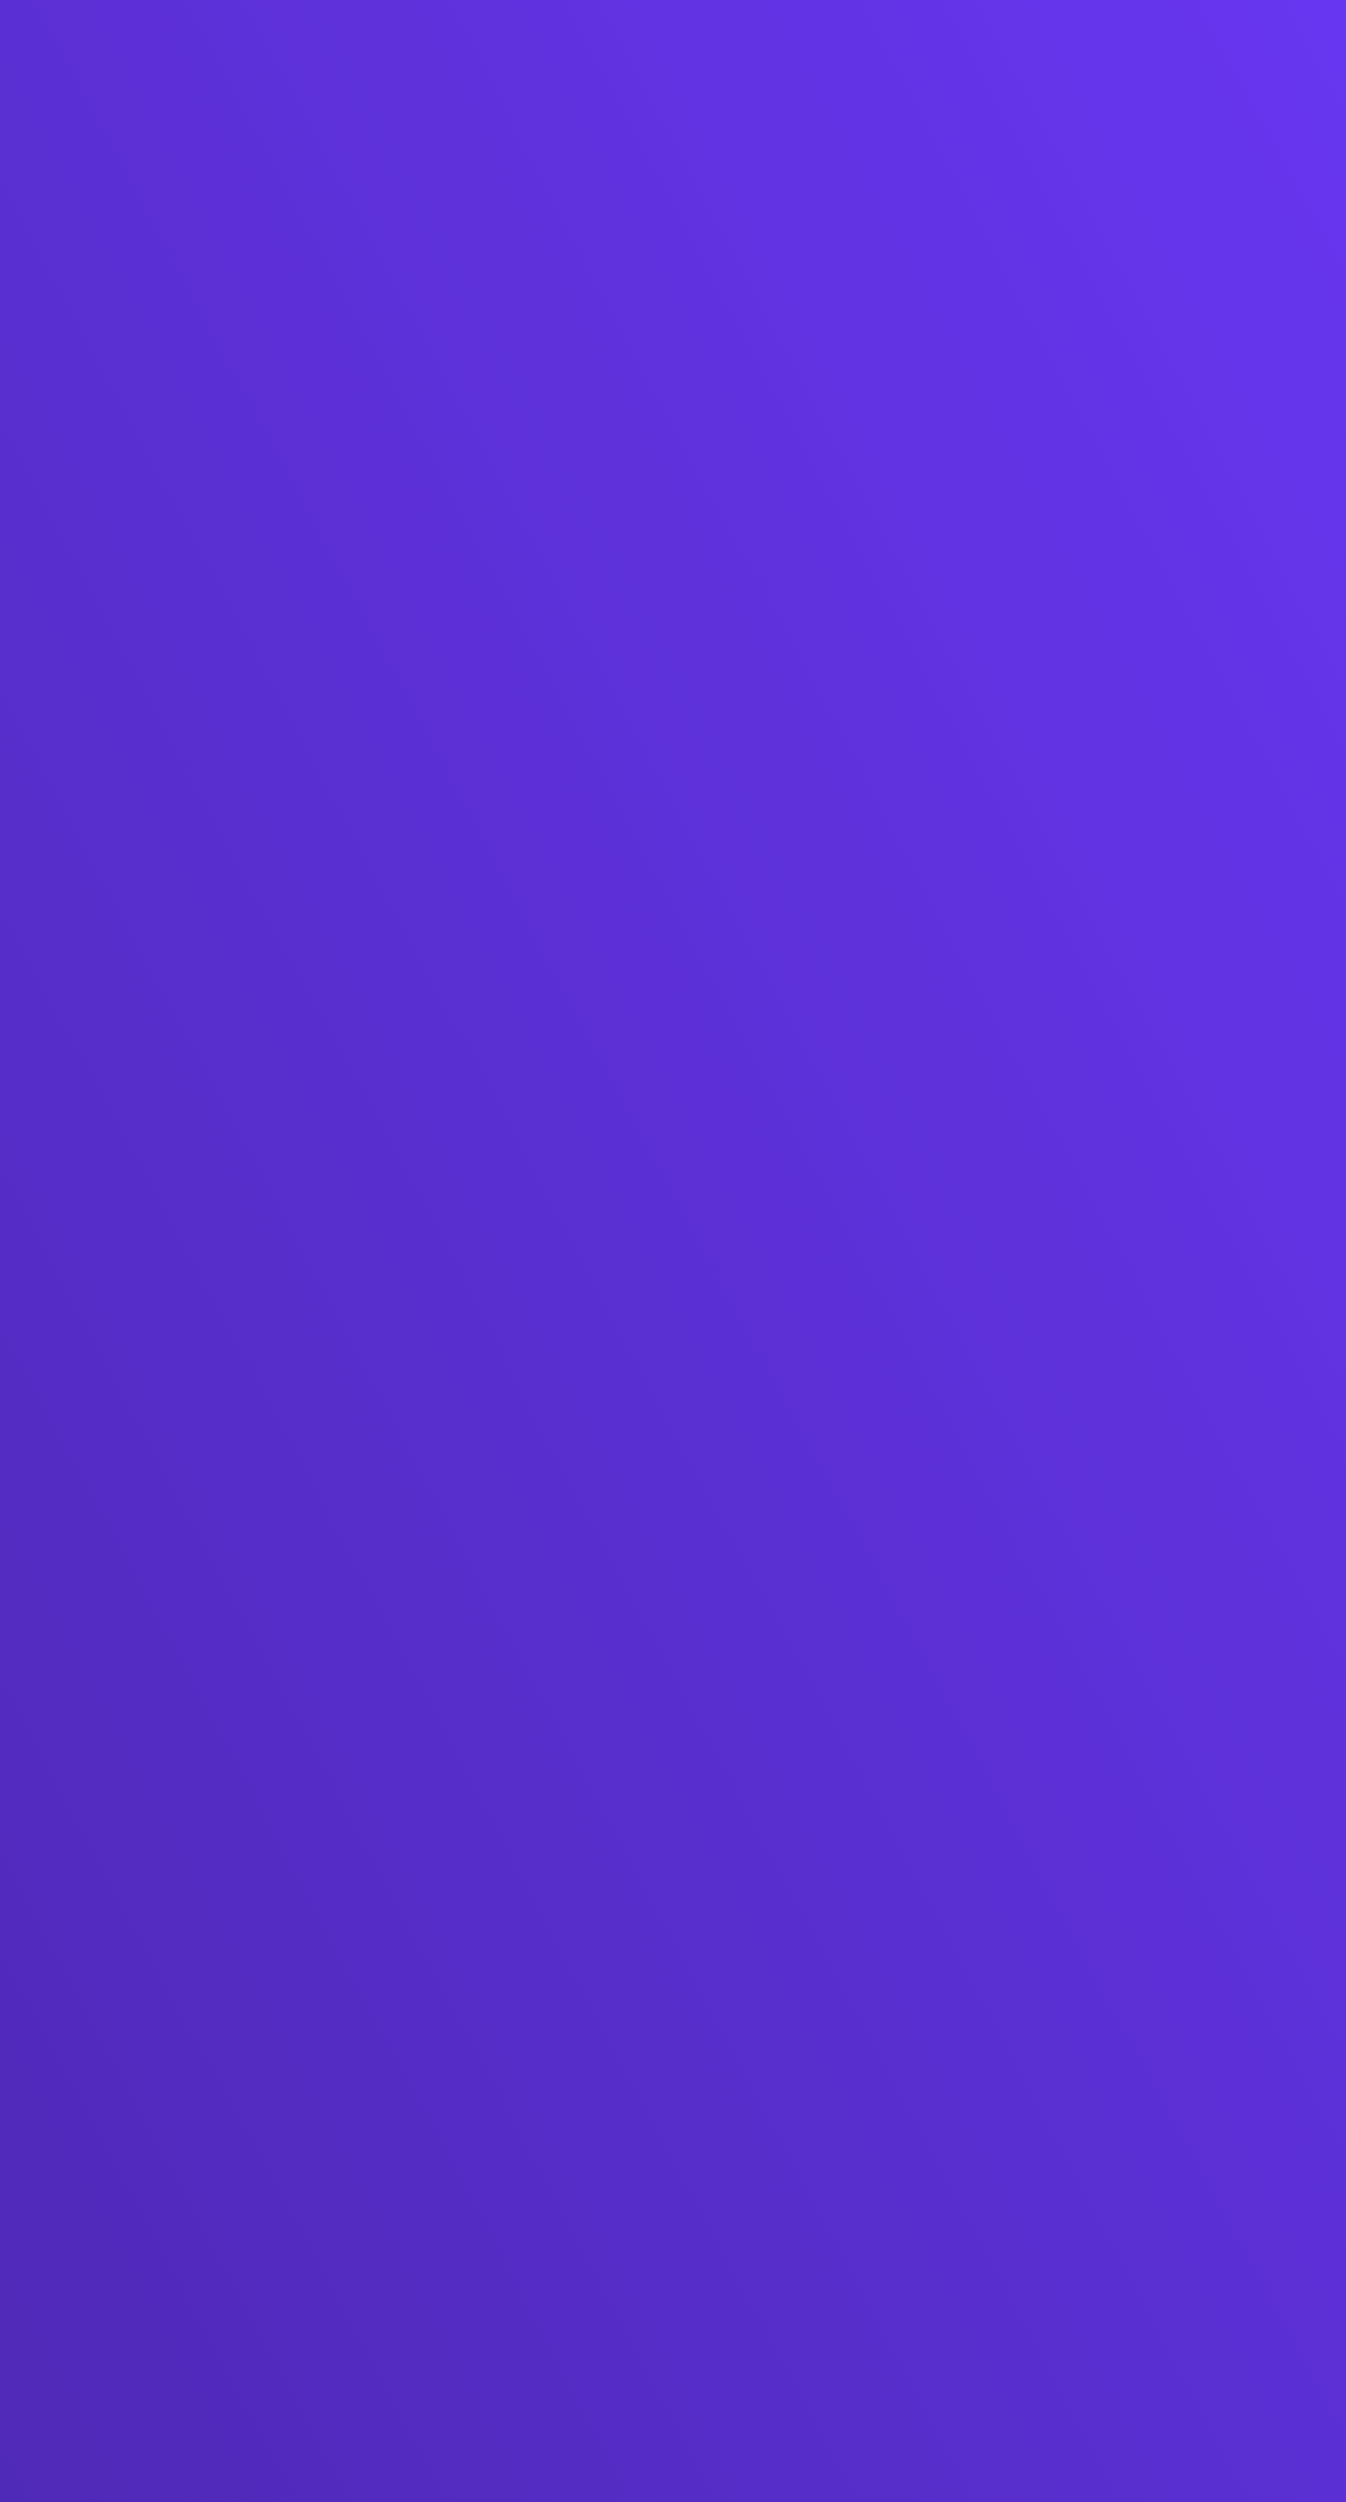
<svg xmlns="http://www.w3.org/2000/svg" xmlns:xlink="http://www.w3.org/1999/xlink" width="1346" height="2502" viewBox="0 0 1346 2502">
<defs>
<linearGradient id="g1" gradientUnits="userSpaceOnUse" x1="-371" y1="1813" x2="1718" y2="689"><stop offset="0" stop-color="#4f29b7"/><stop offset="1" stop-color="#6736f0"/></linearGradient>
</defs>
<rect width="100%" height="100%" fill="#ffffff"/>
<rect fill="url(#g1)" x="0" y="0" width="1346" height="2502"/>
</svg>
